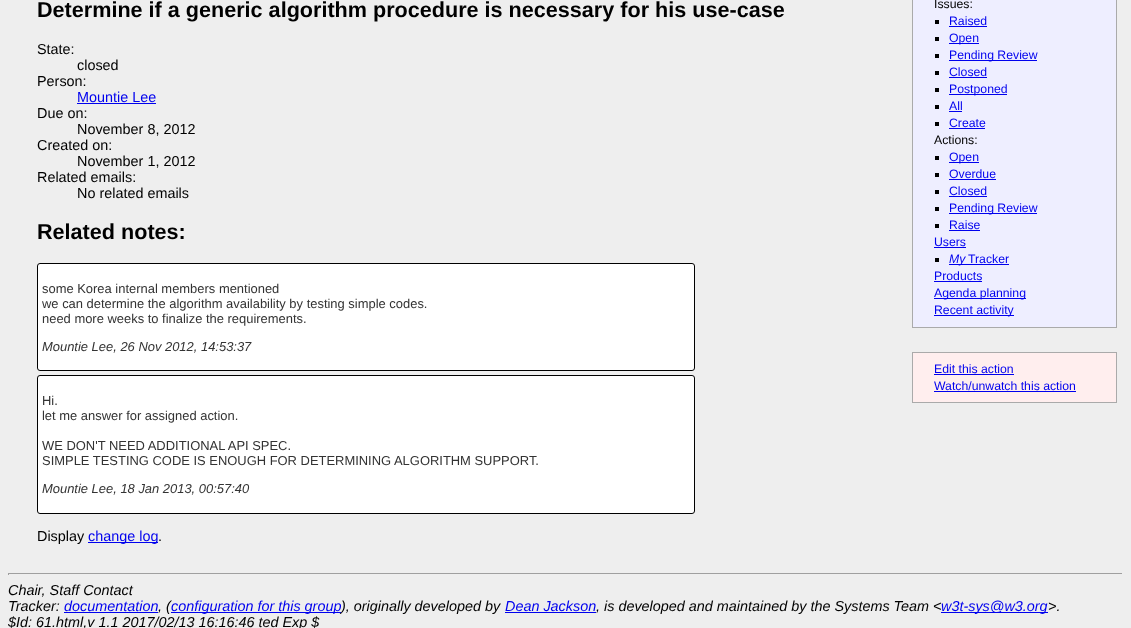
<svg xmlns="http://www.w3.org/2000/svg" xmlns:xlink="http://www.w3.org/1999/xlink" width="1131" height="628" viewBox="0 0 1131 628">
<style>
.cls-1{font:bold 21.6px Liberation Sans;fill:#000000}
.cls-2{font:14.4px Liberation Sans;fill:#000000}
.cls-3{font:14.4px Liberation Sans;fill:#0000ee}
.cls-4{font:12.95px Liberation Sans;fill:#333333}
.cls-5{font:italic 12.95px Liberation Sans;fill:#333333}
.cls-6{font:12.25px Liberation Sans;fill:#000000}
.cls-7{font:12.25px Liberation Sans;fill:#0000ee}
.cls-8{font:italic 12.25px Liberation Sans;fill:#0000ee}
.cls-9{font:italic 14.4px Liberation Sans;fill:#000000}
.cls-10{font:italic 14.4px Liberation Sans;fill:#0000ee}
</style>
<rect width="100%" height="100%" fill="#eeeeee"/>
<rect fill="#0000ee" x="77" y="103" width="79" height="1"/>
<rect fill="#ffffff" stroke="#000000" x="37.5" y="263.5" width="657" height="107" rx="2.5"/>
<rect fill="#ffffff" stroke="#000000" x="37.5" y="375.5" width="657" height="138" rx="2.5"/>
<rect fill="#0000ee" x="88" y="542" width="70" height="1"/>
<rect fill="#eeeeff" stroke="#aaaaaa" x="912.5" y="-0.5" width="204" height="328"/>
<rect fill="#000000" x="935" y="20" width="4" height="4"/>
<rect fill="#0000ee" x="949" y="26" width="38" height="1"/>
<rect fill="#000000" x="935" y="37" width="4" height="4"/>
<rect fill="#0000ee" x="949" y="43" width="30" height="1"/>
<rect fill="#000000" x="935" y="54" width="4" height="4"/>
<rect fill="#0000ee" x="949" y="60" width="88" height="1"/>
<rect fill="#000000" x="935" y="71" width="4" height="4"/>
<rect fill="#0000ee" x="949" y="77" width="38" height="1"/>
<rect fill="#000000" x="935" y="88" width="4" height="4"/>
<rect fill="#0000ee" x="949" y="94" width="58" height="1"/>
<rect fill="#000000" x="935" y="105" width="4" height="4"/>
<rect fill="#0000ee" x="949" y="111" width="13" height="1"/>
<rect fill="#000000" x="935" y="122" width="4" height="4"/>
<rect fill="#0000ee" x="949" y="128" width="36" height="1"/>
<rect fill="#000000" x="935" y="156" width="4" height="4"/>
<rect fill="#0000ee" x="949" y="162" width="30" height="1"/>
<rect fill="#000000" x="935" y="173" width="4" height="4"/>
<rect fill="#0000ee" x="949" y="179" width="47" height="1"/>
<rect fill="#000000" x="935" y="190" width="4" height="4"/>
<rect fill="#0000ee" x="949" y="196" width="38" height="1"/>
<rect fill="#000000" x="935" y="207" width="4" height="4"/>
<rect fill="#0000ee" x="949" y="213" width="88" height="1"/>
<rect fill="#000000" x="935" y="224" width="4" height="4"/>
<rect fill="#0000ee" x="949" y="230" width="31" height="1"/>
<rect fill="#0000ee" x="934" y="247" width="32" height="1"/>
<rect fill="#000000" x="935" y="258" width="4" height="4"/>
<rect fill="#0000ee" x="949" y="264" width="16" height="1"/>
<rect fill="#0000ee" x="965" y="264" width="44" height="1"/>
<rect fill="#0000ee" x="934" y="281" width="48" height="1"/>
<rect fill="#0000ee" x="934" y="298" width="92" height="1"/>
<rect fill="#0000ee" x="934" y="315" width="80" height="1"/>
<rect fill="#ffeeee" stroke="#aaaaaa" x="912.5" y="352.5" width="204" height="50"/>
<rect fill="#0000ee" x="934" y="374" width="80" height="1"/>
<rect fill="#0000ee" x="934" y="391" width="142" height="1"/>
<rect fill="#9f9f9f" x="8" y="573" width="1115" height="1"/>
<rect fill="#eeeeee" x="1122" y="573" width="1" height="2"/>
<rect fill="#9f9f9f" x="8" y="573" width="1" height="2"/>
<rect fill="#0000ee" x="64" y="612" width="94" height="1"/>
<rect fill="#0000ee" x="505" y="612" width="91" height="1"/>
<rect fill="#0000ee" x="941" y="612" width="107" height="1"/>
<text class="cls-1" x="37" y="17">Determine if a generic algorithm procedure is necessary for his use-case</text>
<text class="cls-2" x="37" y="54">State:</text>
<text class="cls-2" x="77" y="70">closed</text>
<text class="cls-2" x="37" y="86">Person:</text>
<text class="cls-3" x="77" y="102">Mountie Lee</text>
<text class="cls-2" x="37" y="118">Due on:</text>
<text class="cls-2" x="77" y="134">November 8, 2012</text>
<text class="cls-2" x="37" y="150">Created on:</text>
<text class="cls-2" x="77" y="166">November 1, 2012</text>
<text class="cls-2" x="37" y="182">Related emails:</text>
<text class="cls-2" x="77" y="198">No related emails</text>
<text class="cls-1" x="37" y="239">Related notes:</text>
<text class="cls-4"><tspan x="42" y="293">some Korea internal members mentioned</tspan><tspan x="42" y="308">we can determine the algorithm availability by testing simple codes.</tspan><tspan x="42" y="323">need more weeks to finalize the requirements.</tspan></text>
<text class="cls-5" x="42" y="351">Mountie Lee, 26 Nov 2012, 14:53:37</text>
<text class="cls-4"><tspan x="42" y="405">Hi.</tspan><tspan x="42" y="420">let me answer for assigned action.</tspan></text>
<text class="cls-4"><tspan x="42" y="450">WE DON'T NEED ADDITIONAL API SPEC.</tspan><tspan x="42" y="465">SIMPLE TESTING CODE IS ENOUGH FOR DETERMINING ALGORITHM SUPPORT.</tspan></text>
<text class="cls-5" x="42" y="493">Mountie Lee, 18 Jan 2013, 00:57:40</text>
<text class="cls-2" x="37" y="541">Display</text>
<text class="cls-3" x="88" y="541">change log</text>
<text class="cls-2" x="158" y="541">.</text>
<text class="cls-6" x="934" y="8">Issues:</text>
<text class="cls-7"><tspan x="949" y="25">Raised</tspan><tspan x="949" y="42">Open</tspan><tspan x="949" y="59">Pending Review</tspan><tspan x="949" y="76">Closed</tspan><tspan x="949" y="93">Postponed</tspan><tspan x="949" y="110">All</tspan><tspan x="949" y="127">Create</tspan></text>
<text class="cls-6" x="934" y="144">Actions:</text>
<text class="cls-7"><tspan x="949" y="161">Open</tspan><tspan x="949" y="178">Overdue</tspan><tspan x="949" y="195">Closed</tspan><tspan x="949" y="212">Pending Review</tspan><tspan x="949" y="229">Raise</tspan></text>
<text class="cls-7" x="934" y="246">Users</text>
<text class="cls-8" x="949" y="263">My</text>
<text class="cls-7" x="968" y="263">Tracker</text>
<text class="cls-7"><tspan x="934" y="280">Products</tspan><tspan x="934" y="297">Agenda planning</tspan><tspan x="934" y="314">Recent activity</tspan></text>
<text class="cls-7"><tspan x="934" y="373">Edit this action</tspan><tspan x="934" y="390">Watch/unwatch this action</tspan></text>
<text class="cls-9"><tspan x="8" y="595">Chair, Staff Contact</tspan><tspan x="8" y="611">Tracker:</tspan></text>
<text class="cls-10" x="64" y="611">documentation</text>
<text class="cls-9" x="158" y="611">, (</text>
<rect fill="#0000ee" x="171" y="612" width="170" height="1"/>
<text class="cls-10" x="171" y="611">configuration for this group</text>
<text class="cls-9" x="341" y="611">), originally developed by</text>
<text class="cls-10" x="505" y="611">Dean Jackson</text>
<text class="cls-9" x="596" y="611">, is developed and maintained by the Systems Team &lt;</text>
<text class="cls-10" x="941" y="611">w3t-sys@w3.org</text>
<text class="cls-9" x="1048" y="611">&gt;.</text>
<text class="cls-9" x="8" y="627">$Id: 61.html,v 1.1 2017/02/13 16:16:46 ted Exp $</text>
</svg>
